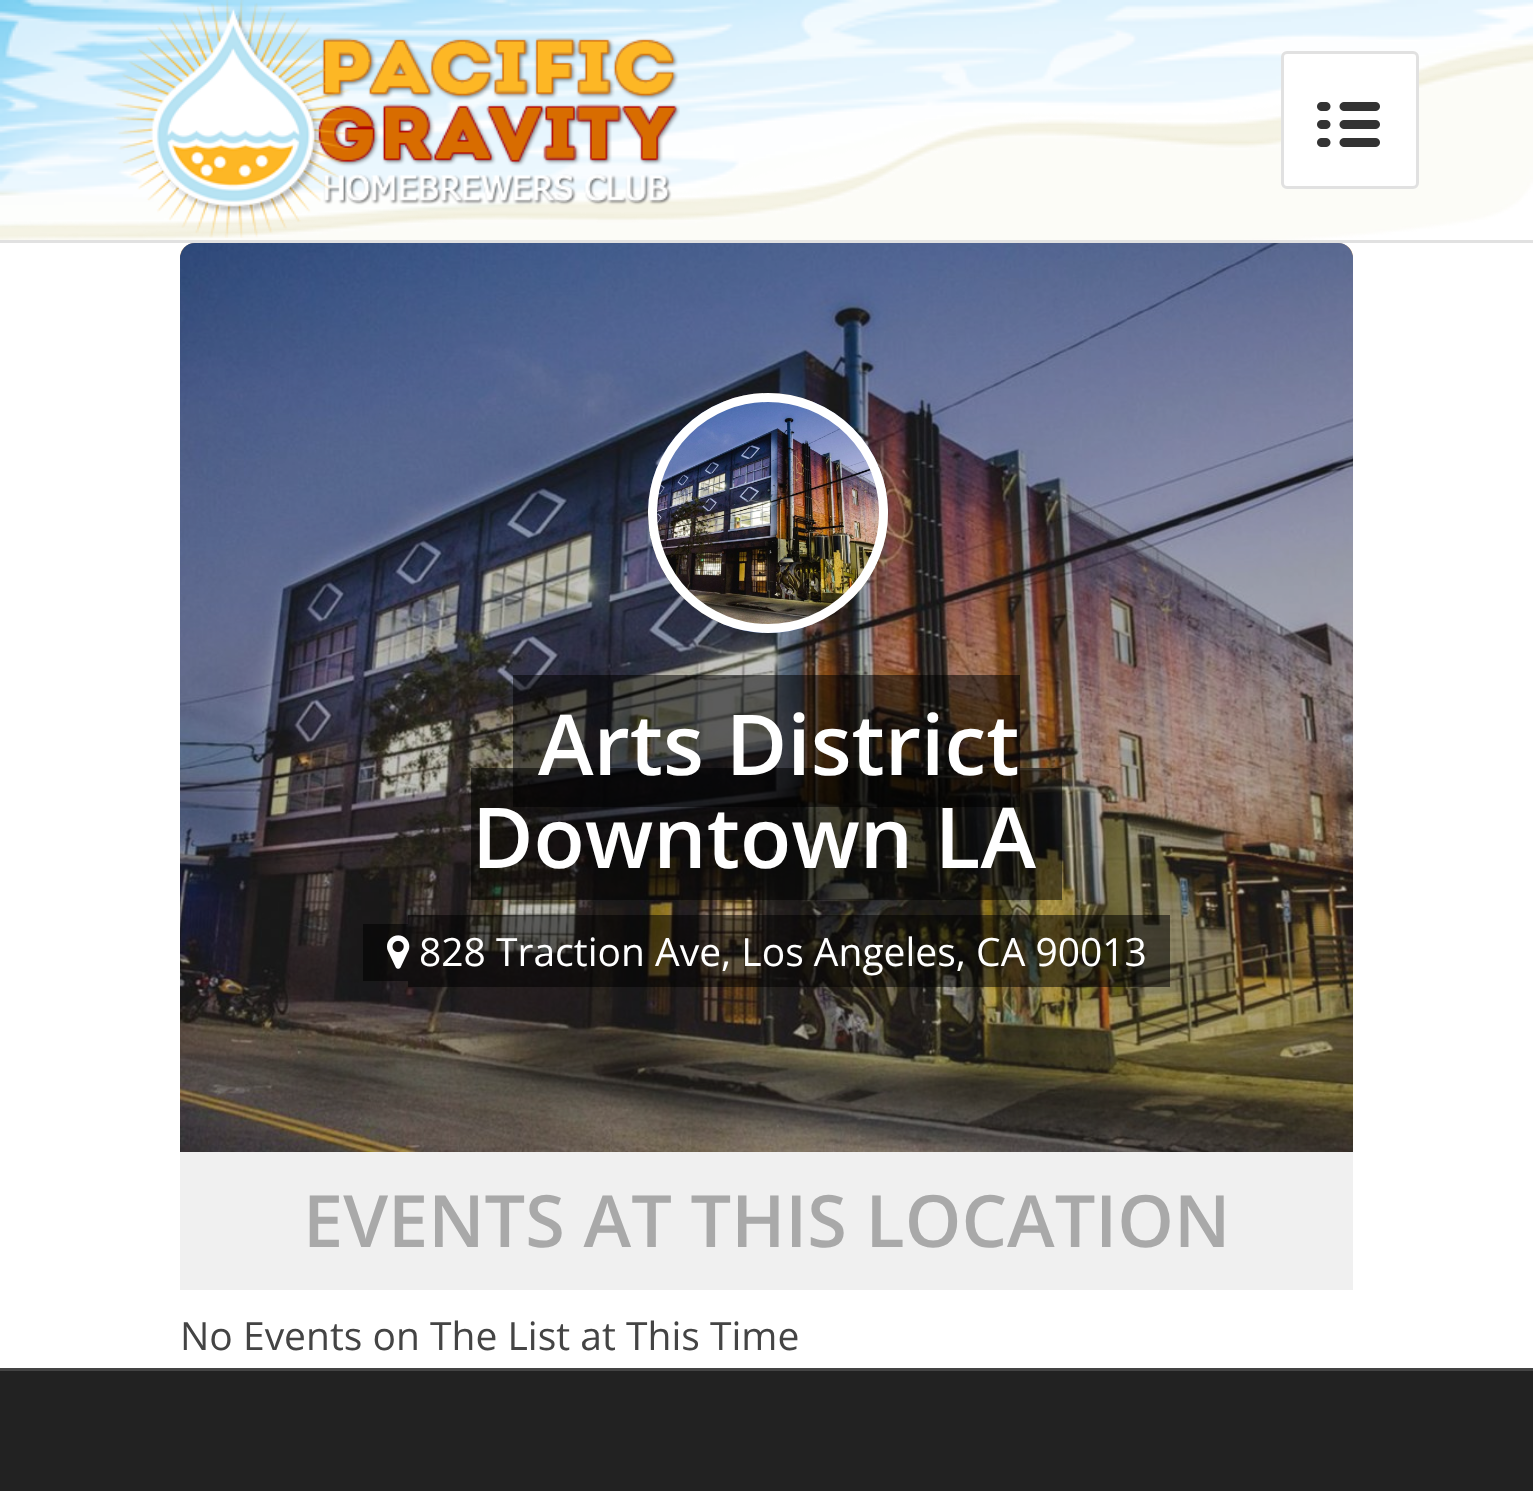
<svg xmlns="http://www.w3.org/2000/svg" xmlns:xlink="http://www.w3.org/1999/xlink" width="1533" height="1491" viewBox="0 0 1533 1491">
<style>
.cls-1{font:600 84px Open Sans;fill:#ffffff}
.cls-2{font:39px Open Sans;fill:#ffffff}
.cls-3{font:600 72px Open Sans;fill:#a9a9a9}
.cls-4{font:39px Open Sans;fill:#444444}
</style>
<rect width="100%" height="100%" fill="#ffffff"/>
<image xlink:href="image0.png" x="0" y="0" width="1533" height="240"/>
<rect fill="#e1e1e1" x="0" y="240" width="1533" height="3"/>
<image xlink:href="image1.png" x="114" y="0" width="566" height="238"/>
<rect fill="#ffffff" stroke="#e1e1e1" stroke-width="3" x="1282.5" y="52.5" width="135" height="135" rx="4.5"/>
<image xlink:href="image2.png" x="1317" y="102" width="63" height="45"/>
<path fill="#daa971" d="M195 243H1338C1346.5 243 1353 249.5 1353 258V1152H180V258C180 249.5 186.5 243 195 243Z"/>
<image xlink:href="image3.png" x="180" y="243" width="1173" height="909"/>
<path fill="#3d3d3d" fill-opacity="0.3" d="M195 243H1338C1346.5 243 1353 249.5 1353 258V1152H180V258C180 249.5 186.5 243 195 243Z"/>
<image xlink:href="image4.png" x="648" y="393" width="240" height="240"/>
<circle fill="none" stroke="#ffffff" stroke-width="9" cx="768" cy="513" r="115.5"/>
<rect fill="#000000" fill-opacity="0.53" x="513" y="675" width="507" height="132"/>
<rect fill="#000000" fill-opacity="0.53" x="471" y="768" width="591" height="132"/>
<rect fill="#000000" fill-opacity="0.53" x="363" y="924" width="45" height="57"/>
<rect fill="#000000" fill-opacity="0.53" x="408" y="915" width="762" height="72"/>
<image xlink:href="image5.png" x="387" y="935" width="23" height="34"/>
<rect fill="#f0f0f0" x="180" y="1152" width="1173" height="138"/>
<rect fill="#222222" x="0" y="1371" width="1533" height="120"/>
<rect fill="#444444" x="0" y="1368" width="1533" height="3"/>
<text class="cls-1" x="538" y="775">Arts District</text>
<text class="cls-1" x="472" y="868">Downtown LA</text>
<text class="cls-2" x="419" y="966">828 Traction Ave, Los Angeles, CA 90013</text>
<text class="cls-3" x="303" y="1247">EVENTS AT THIS LOCATION</text>
<text class="cls-4" x="180" y="1350">No Events on The List at This Time</text>
</svg>
